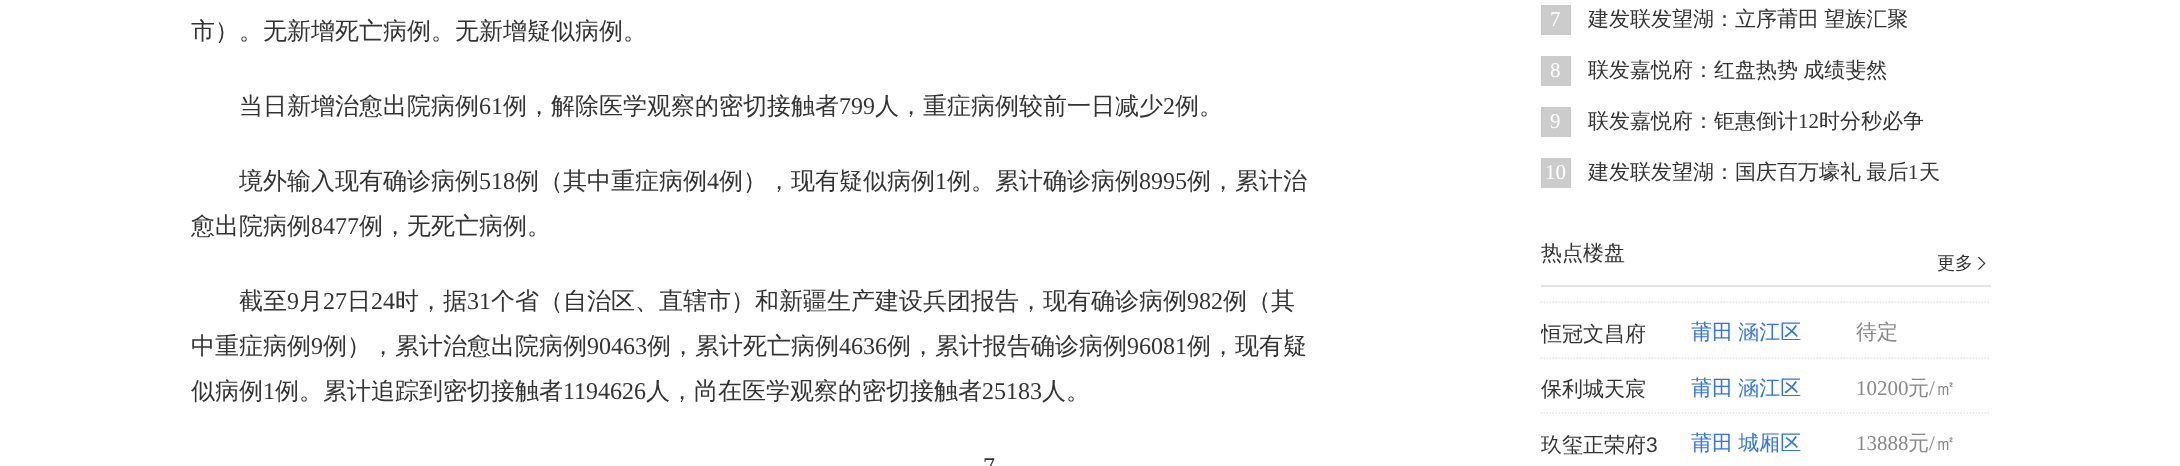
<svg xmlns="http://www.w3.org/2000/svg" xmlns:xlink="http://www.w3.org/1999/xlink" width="2180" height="466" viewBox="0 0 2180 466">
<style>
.cls-1{font:500 24px WenQuanYi Zen Hei;fill:#333333}
.cls-2{font:24px Liberation Serif;fill:#333333}
.cls-3{font:21px Liberation Serif;fill:#ffffff}
.cls-4{font:500 21px WenQuanYi Zen Hei;fill:#333333}
.cls-5{font:21px Liberation Serif;fill:#333333}
.cls-6{font:500 18px WenQuanYi Zen Hei;fill:#333333}
.cls-7{font:500 21px WenQuanYi Zen Hei;fill:#3172f2}
.cls-8{font:500 21px WenQuanYi Zen Hei;fill:#888888}
.cls-9{font:21px Liberation Serif;fill:#888888}
.cls-10{font:21px Liberation Sans;fill:#333333}
</style>
<defs>
<clipPath id="clip1"><rect x="1541" y="318" width="150" height="30"/></clipPath>
<clipPath id="clip2"><rect x="1541" y="429" width="150" height="30"/></clipPath>
</defs>
<rect width="100%" height="100%" fill="#ffffff"/>
<rect fill="#cccccc" x="1541" y="5" width="30" height="30"/>
<rect fill="#cccccc" x="1541" y="56" width="30" height="30"/>
<rect fill="#cccccc" x="1541" y="107" width="30" height="30"/>
<rect fill="#cccccc" x="1541" y="158" width="30" height="30"/>
<rect fill="#e2e2e2" x="1541" y="285" width="450" height="2"/>
<image xlink:href="image0.png" x="1977" y="257" width="9" height="13"/>
<path fill="none" stroke="#e2e2e2" stroke-width="1.5" stroke-dasharray="1.5 1.5" d="M1540.5 302H1990.5"/>
<path fill="none" stroke="#e2e2e2" stroke-width="1.5" stroke-dasharray="1.5 1.5" d="M1540.5 358H1990.5"/>
<path fill="none" stroke="#e2e2e2" stroke-width="1.5" stroke-dasharray="1.5 1.5" d="M1540.5 413H1990.5"/>
<text class="cls-1" x="191" y="39">市）。无新增死亡病例。无新增疑似病例。</text>
<text class="cls-1" x="239" y="114">当日新增治愈出院病例</text>
<text class="cls-2" x="479" y="114">61</text>
<text class="cls-1" x="503" y="114">例，解除医学观察的密切接触者</text>
<text class="cls-2" x="839" y="114">799</text>
<text class="cls-1" x="875" y="114">人，重症病例较前一日减少</text>
<text class="cls-2" x="1163" y="114">2</text>
<text class="cls-1" x="1175" y="114">例。</text>
<text class="cls-1" x="239" y="189">境外输入现有确诊病例</text>
<text class="cls-2" x="479" y="189">518</text>
<text class="cls-1" x="515" y="189">例（其中重症病例</text>
<text class="cls-2" x="707" y="189">4</text>
<text class="cls-1" x="719" y="189">例），现有疑似病例</text>
<text class="cls-2" x="935" y="189">1</text>
<text class="cls-1" x="947" y="189">例。累计确诊病例</text>
<text class="cls-2" x="1139" y="189">8995</text>
<text class="cls-1" x="1187" y="189">例，累计治</text>
<text class="cls-1" x="191" y="234">愈出院病例</text>
<text class="cls-2" x="311" y="234">8477</text>
<text class="cls-1" x="359" y="234">例，无死亡病例。</text>
<text class="cls-1" x="239" y="309">截至</text>
<text class="cls-2" x="287" y="309">9</text>
<text class="cls-1" x="299" y="309">月</text>
<text class="cls-2" x="323" y="309">27</text>
<text class="cls-1" x="347" y="309">日</text>
<text class="cls-2" x="371" y="309">24</text>
<text class="cls-1" x="395" y="309">时，据</text>
<text class="cls-2" x="467" y="309">31</text>
<text class="cls-1" x="491" y="309">个省（自治区、直辖市）和新疆生产建设兵团报告，现有确诊病例</text>
<text class="cls-2" x="1187" y="309">982</text>
<text class="cls-1" x="1223" y="309">例（其</text>
<text class="cls-1" x="191" y="354">中重症病例</text>
<text class="cls-2" x="311" y="354">9</text>
<text class="cls-1" x="323" y="354">例），累计治愈出院病例</text>
<text class="cls-2" x="587" y="354">90463</text>
<text class="cls-1" x="647" y="354">例，累计死亡病例</text>
<text class="cls-2" x="839" y="354">4636</text>
<text class="cls-1" x="887" y="354">例，累计报告确诊病例</text>
<text class="cls-2" x="1127" y="354">96081</text>
<text class="cls-1" x="1187" y="354">例，现有疑</text>
<text class="cls-1" x="191" y="399">似病例</text>
<text class="cls-2" x="263" y="399">1</text>
<text class="cls-1" x="275" y="399">例。累计追踪到密切接触者</text>
<text class="cls-2" x="563" y="399">1194626</text>
<text class="cls-1" x="646" y="399">人，尚在医学观察的密切接触者</text>
<text class="cls-2" x="982" y="399">25183</text>
<text class="cls-1" x="1042" y="399">人。</text>
<text class="cls-2" x="983" y="474">7</text>
<text class="cls-3" x="1550" y="26">7</text>
<text class="cls-4" x="1588" y="26" word-spacing="-1">建发联发望湖：立序莆田 望族汇聚</text>
<text class="cls-3" x="1550" y="77">8</text>
<text class="cls-4" x="1588" y="77" word-spacing="-1">联发嘉悦府：红盘热势 成绩斐然</text>
<text class="cls-3" x="1550" y="128">9</text>
<text class="cls-4" x="1588" y="128">联发嘉悦府：钜惠倒计</text>
<text class="cls-5" x="1798" y="128">12</text>
<text class="cls-4" x="1819" y="128">时分秒必争</text>
<text class="cls-3" x="1545" y="179">10</text>
<text class="cls-4" x="1588" y="179" word-spacing="-1">建发联发望湖：国庆百万壕礼 最后</text>
<text class="cls-5" x="1908" y="179">1</text>
<text class="cls-4" x="1919" y="179">天</text>
<text class="cls-4" x="1541" y="260">热点楼盘</text>
<text class="cls-6" x="1937" y="269">更多</text>
<g clip-path="url(#clip1)">
<text class="cls-4" x="1541" y="341">恒冠文昌府</text>
</g>
<text class="cls-7" x="1691" y="339" word-spacing="-1">莆田 涵江区</text>
<text class="cls-8" x="1856" y="339">待定</text>
<text class="cls-4" x="1541" y="396">保利城天宸</text>
<text class="cls-7" x="1691" y="395" word-spacing="-1">莆田 涵江区</text>
<text class="cls-9" x="1856" y="395">10200</text>
<text class="cls-8" x="1908" y="395">元</text>
<text class="cls-9" x="1929" y="395">/</text>
<text class="cls-8" x="1935" y="395">㎡</text>
<g clip-path="url(#clip2)">
<text class="cls-4" x="1541" y="452">玖玺正荣府</text>
</g>
<text class="cls-10" x="1646" y="452">3</text>
<text class="cls-7" x="1691" y="450" word-spacing="-1">莆田 城厢区</text>
<text class="cls-9" x="1856" y="450">13888</text>
<text class="cls-8" x="1908" y="450">元</text>
<text class="cls-9" x="1929" y="450">/</text>
<text class="cls-8" x="1935" y="450">㎡</text>
</svg>
